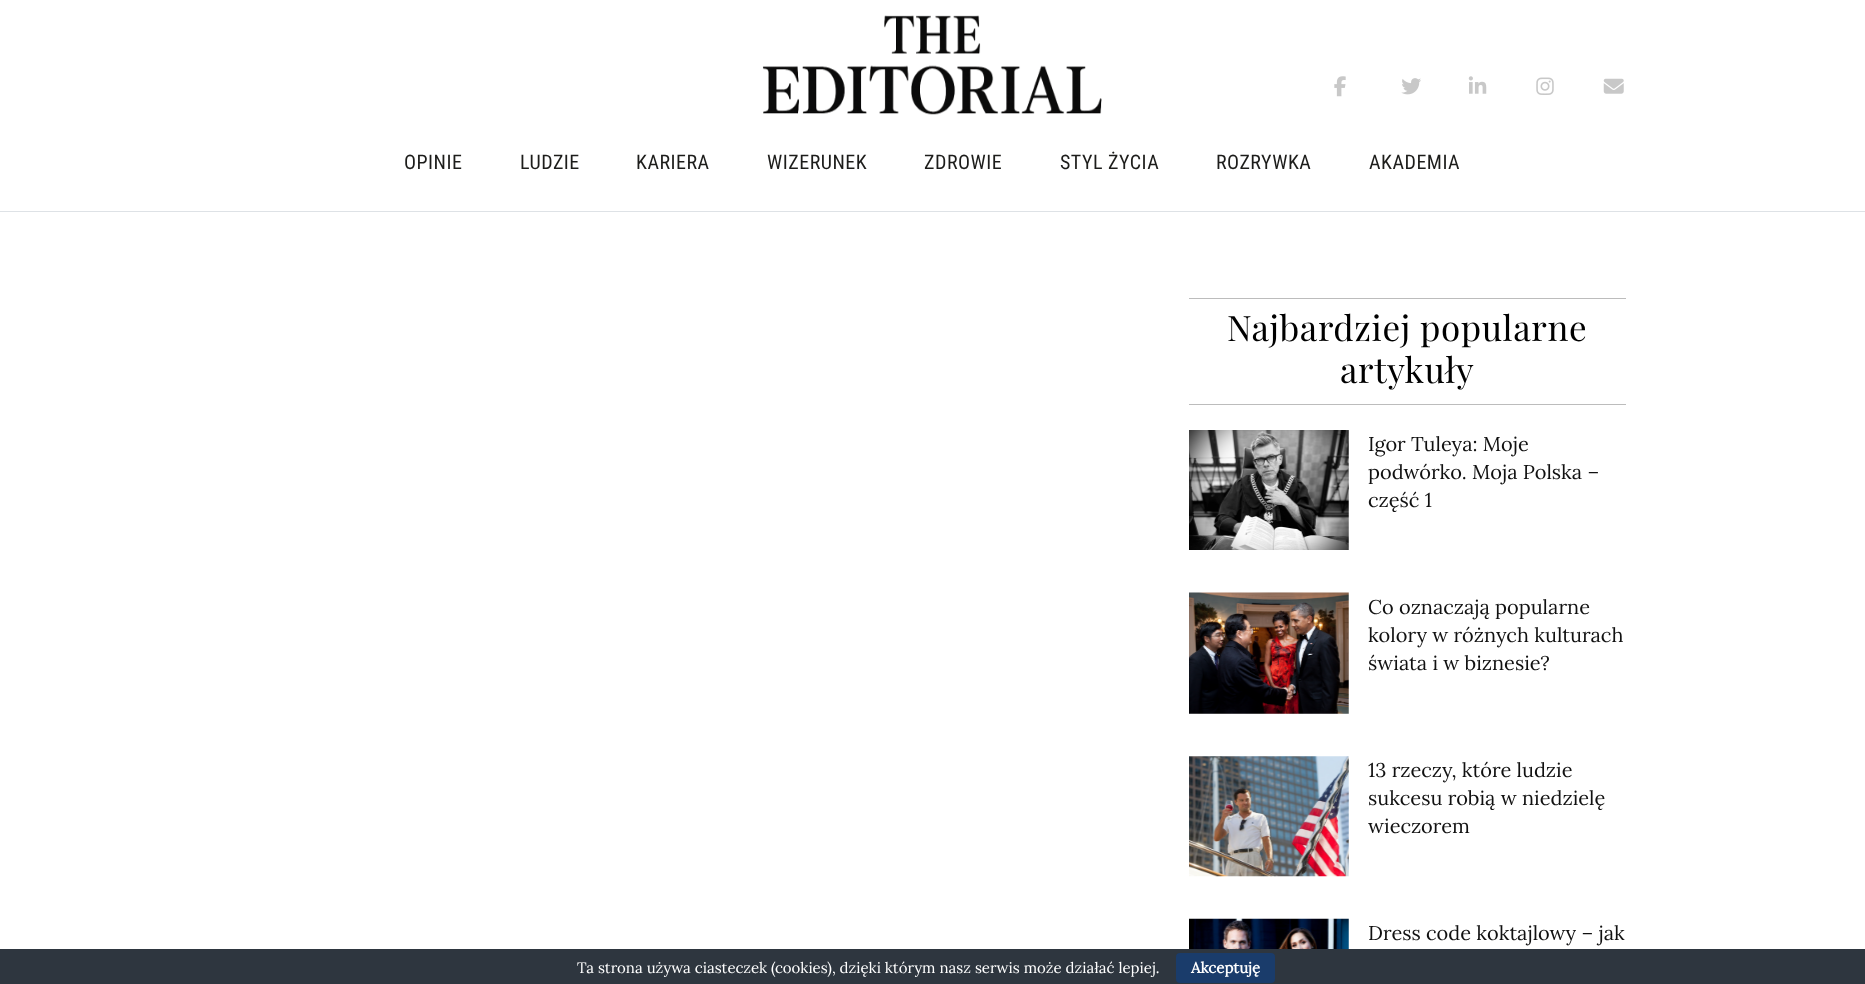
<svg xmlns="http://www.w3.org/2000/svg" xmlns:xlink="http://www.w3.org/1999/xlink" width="1865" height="984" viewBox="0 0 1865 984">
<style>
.cls-1{font:20px Roboto Condensed;letter-spacing:0.5px;fill:#1d1d1b}
.cls-2{font:35px Playfair Display;letter-spacing:0.6px;fill:#000000}
.cls-3{font:20px Lora;fill:#111111}
.cls-4{font:15px Lora;fill:#ffffff}
.cls-5{font:bold 15px Lora;fill:#ffffff}
</style>
<rect width="100%" height="100%" fill="#ffffff"/>
<rect fill="#dee2e6" x="0" y="211" width="1865" height="1"/>
<image xlink:href="image0.png" x="762" y="15" width="340" height="100"/>
<image xlink:href="image1.png" x="1334" y="76" width="12" height="21"/>
<image xlink:href="image2.png" x="1401" y="78" width="20" height="17"/>
<image xlink:href="image3.png" x="1468" y="76" width="19" height="18"/>
<image xlink:href="image4.png" x="1536" y="77" width="18" height="18"/>
<image xlink:href="image5.png" x="1603" y="78" width="21" height="16"/>
<rect fill="#bcbcbc" x="1189" y="298" width="437" height="1"/>
<rect fill="#bcbcbc" x="1189" y="404" width="437" height="1"/>
<image xlink:href="image6.png" x="1189" y="430" width="160" height="120"/>
<image xlink:href="image7.png" x="1189" y="592" width="160" height="122"/>
<image xlink:href="image8.png" x="1189" y="756" width="160" height="121"/>
<image xlink:href="image9.png" x="1189" y="918" width="160" height="31"/>
<rect fill="#2e363f" x="0" y="949" width="1865" height="35"/>
<rect fill="#1a3c6b" x="1176" y="953" width="99" height="30" rx="4"/>
<text class="cls-1" x="404" y="169">OPINIE</text>
<text class="cls-1" x="520" y="169">LUDZIE</text>
<text class="cls-1" x="636" y="169">KARIERA</text>
<text class="cls-1" x="767" y="169">WIZERUNEK</text>
<text class="cls-1" x="924" y="169">ZDROWIE</text>
<text class="cls-1" x="1060" y="169">STYL ŻYCIA</text>
<text class="cls-1" x="1216" y="169">ROZRYWKA</text>
<text class="cls-1" x="1369" y="169">AKADEMIA</text>
<text class="cls-2" x="1227" y="341">Najbardziej popularne</text>
<text class="cls-2" x="1340" y="383">artykuły</text>
<text class="cls-3"><tspan x="1368" y="451">Igor Tuleya: Moje</tspan><tspan x="1368" y="479">podwórko. Moja Polska –</tspan><tspan x="1368" y="507">część 1</tspan></text>
<text class="cls-3"><tspan x="1368" y="614">Co oznaczają popularne</tspan><tspan x="1368" y="642">kolory w różnych kulturach</tspan><tspan x="1368" y="670">świata i w biznesie?</tspan></text>
<text class="cls-3"><tspan x="1368" y="777">13 rzeczy, które ludzie</tspan><tspan x="1368" y="805">sukcesu robią w niedzielę</tspan><tspan x="1368" y="833">wieczorem</tspan></text>
<text class="cls-3" x="1368" y="940">Dress code koktajlowy – jak</text>
<text class="cls-4" x="577" y="973">Ta strona używa ciasteczek (cookies), dzięki którym nasz serwis może działać lepiej.</text>
<text class="cls-5" x="1191" y="973">Akceptuję</text>
</svg>
